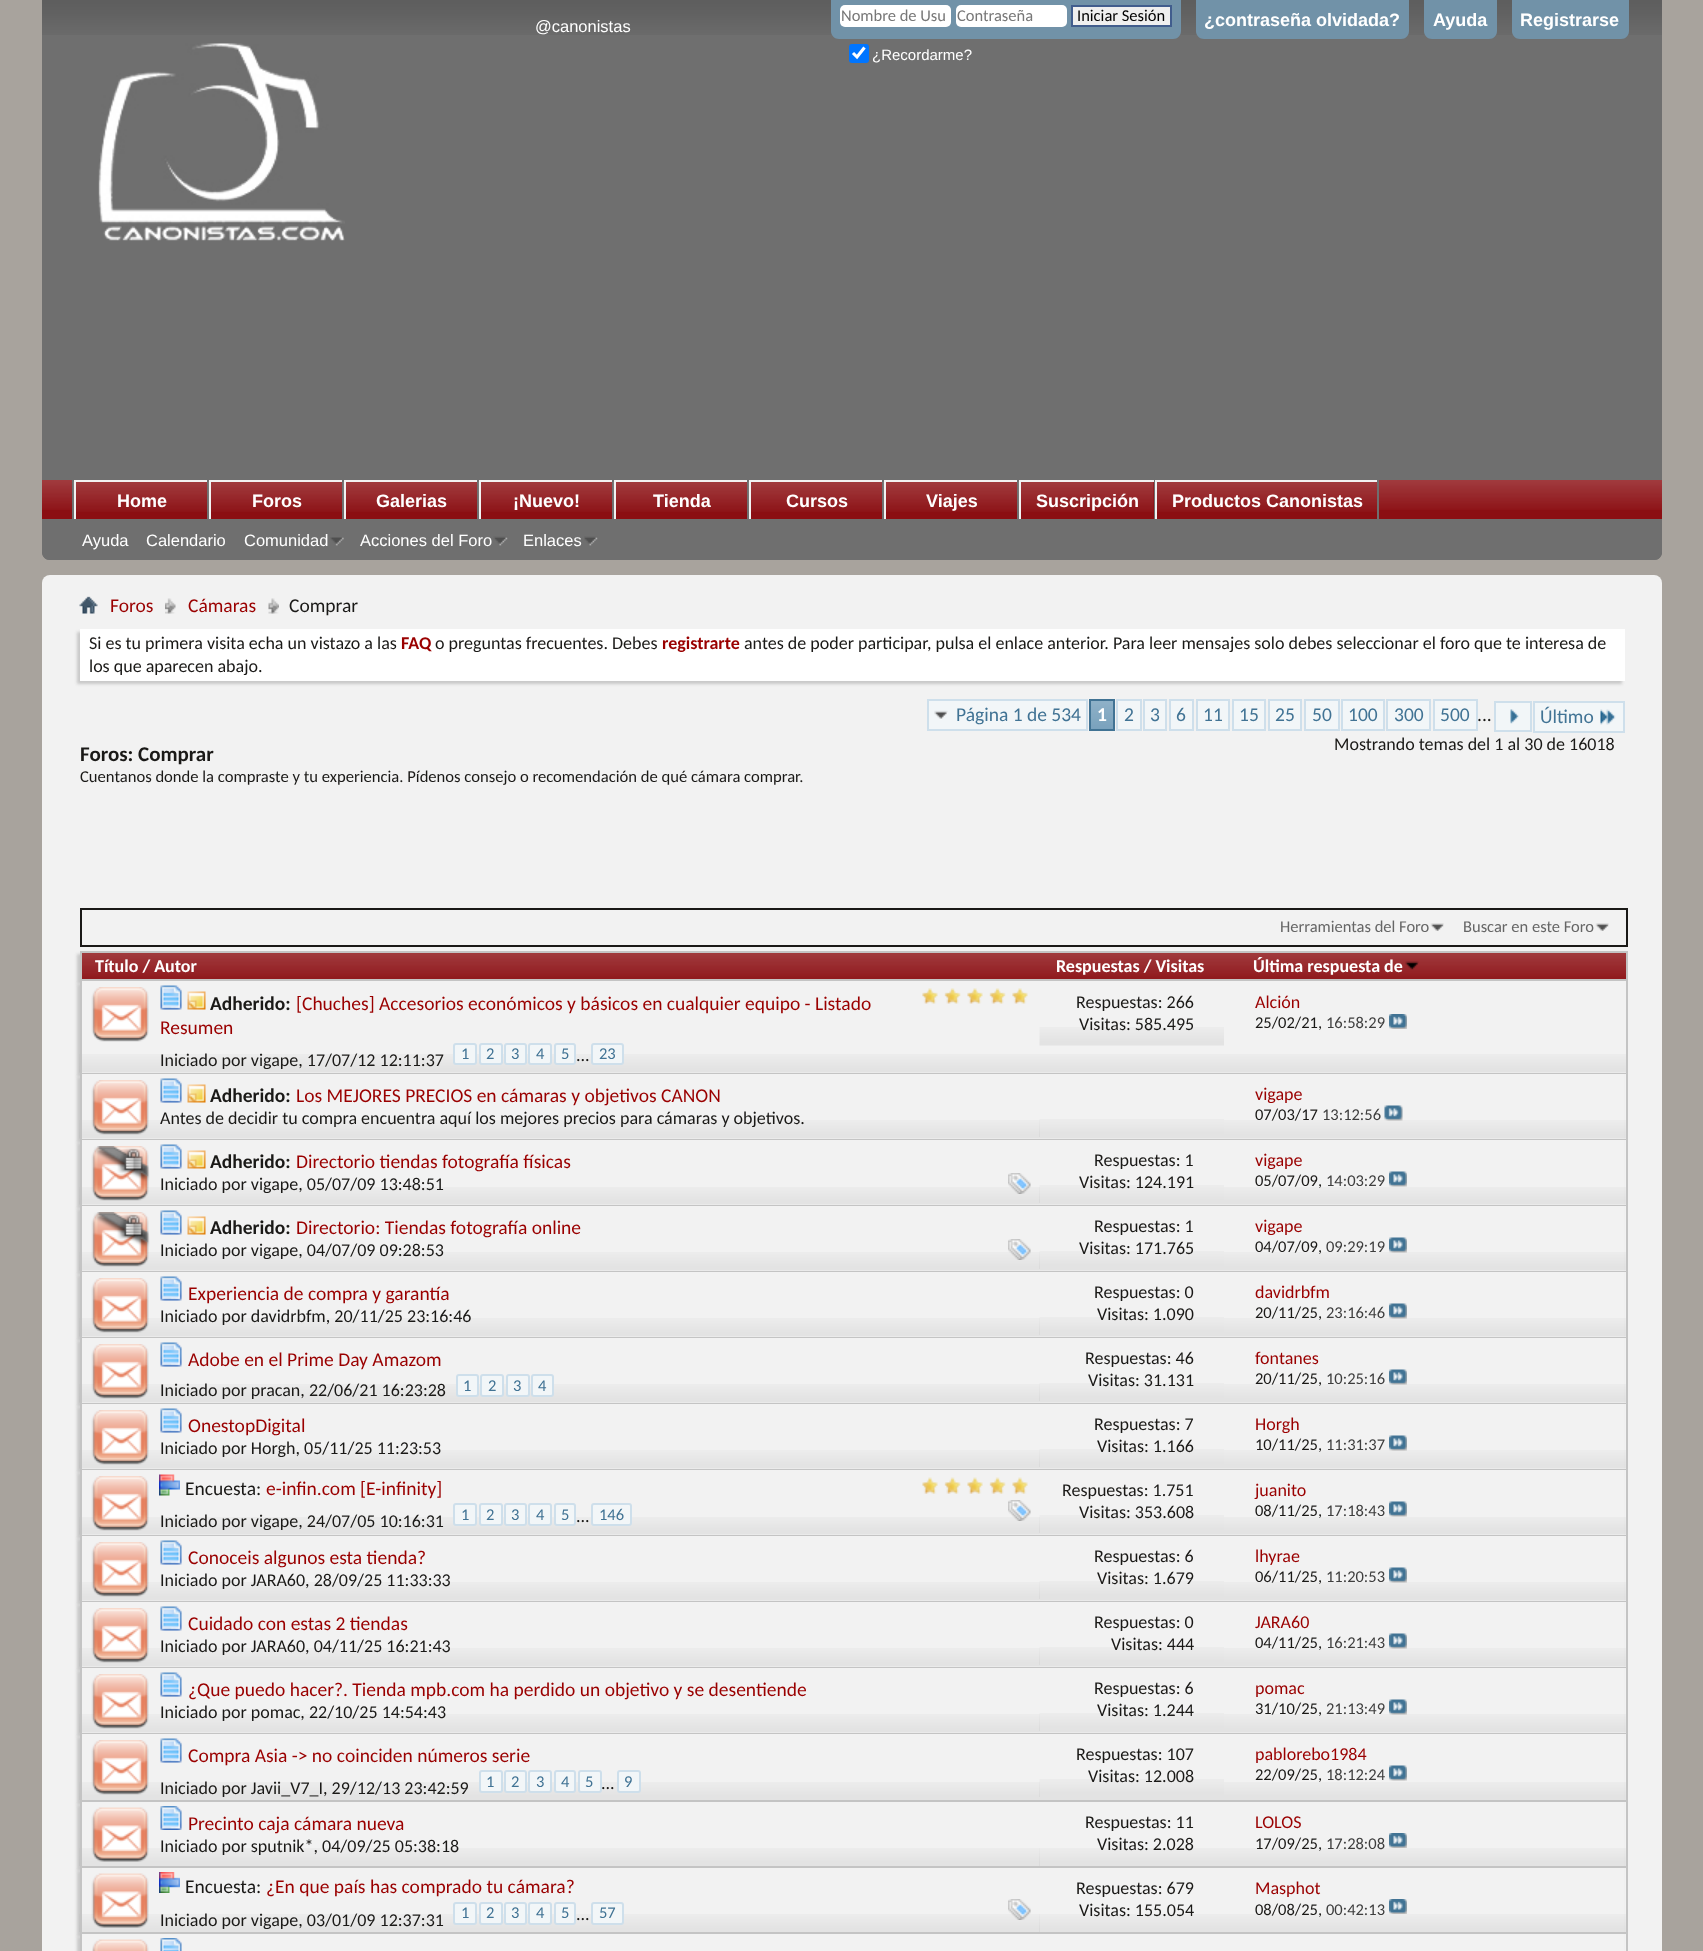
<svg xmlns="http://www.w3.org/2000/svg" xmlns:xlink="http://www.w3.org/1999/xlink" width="1703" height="1951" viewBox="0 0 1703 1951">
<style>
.cls-1{font:16.5px Liberation Sans;fill:#ffffff}
.cls-2{font:16.5px Carlito;fill:#777777}
.cls-3{font:16.5px Carlito;fill:#000000}
.cls-4{font:15px Liberation Sans;fill:#ffffff}
.cls-5{font:bold 18px Liberation Sans;fill:#ffffff}
.cls-6{font:19.5px Carlito;fill:#9a0000}
.cls-7{font:19.5px Carlito;fill:#1a1917}
.cls-8{font:18px Carlito;fill:#1a1917}
.cls-9{font:bold 18px Carlito;fill:#9a0000}
.cls-10{font:19.5px Carlito;fill:#417394}
.cls-11{font:bold 19.5px Carlito;fill:#ffffff}
.cls-12{font:bold 21px Carlito;fill:#1a1917}
.cls-13{font:16.6px Carlito;fill:#1a1917}
.cls-14{font:16.5px Carlito;fill:#666666}
.cls-15{font:bold 18px Carlito;fill:#ffffff}
.cls-16{font:bold 19.5px Carlito;fill:#1a1917}
.cls-17{font:16.5px Carlito;fill:#417394}
.cls-18{font:18px Carlito;fill:#9a0000}
.cls-19{font:16.5px Carlito;fill:#1a1917}
.cls-20{font:16.5px Carlito;fill:#3e3e3e}
</style>
<rect width="100%" height="100%" fill="#a8a39d"/>
<path fill="#6f6f6f" d="M42 0H1662V552C1662 556.5 1658.5 560 1654 560H50C45.5 560 42 556.5 42 552Z"/>
<image xlink:href="image0.png" x="42" y="0" width="1620" height="35"/>
<path fill="#7192a8" d="M831 0H1181V31C1181 35.5 1177.5 39 1173 39H839C834.5 39 831 35.5 831 31Z"/>
<rect fill="#ffffff" x="840" y="5" width="111" height="22" rx="5"/>
<rect fill="#ffffff" x="956" y="5" width="111" height="22" rx="5"/>
<rect fill="#efefef" stroke="#415d8d" stroke-width="2" x="1072" y="6" width="99" height="20"/>
<rect fill="#0075ff" x="849" y="44" width="20" height="19" rx="3"/>
<path fill="none" stroke="#ffffff" stroke-width="3.1" d="M853 53L857 57L864.5 47.5"/>
<path fill="#7192a8" d="M1196 0H1409V31C1409 35.5 1405.5 39 1401 39H1204C1199.5 39 1196 35.5 1196 31Z"/>
<path fill="#7192a8" d="M1424 0H1497V31C1497 35.5 1493.5 39 1489 39H1432C1427.5 39 1424 35.5 1424 31Z"/>
<path fill="#7192a8" d="M1512 0H1629V31C1629 35.5 1625.5 39 1621 39H1520C1515.5 39 1512 35.5 1512 31Z"/>
<image xlink:href="image1.png" x="98" y="43" width="247" height="198"/>
<path fill="#6f6f6f" d="M42 480H1662V552C1662 556.5 1658.5 560 1654 560H50C45.5 560 42 556.5 42 552Z"/>
<rect fill="#8b0e12" x="42" y="480" width="1620" height="39"/>
<image xlink:href="image2.png" x="42" y="480" width="1620" height="30"/>
<rect fill="#6f6f6f" x="477" y="480" width="2" height="41"/>
<rect fill="#8b0e12" x="346" y="482" width="131" height="28"/>
<rect fill="#6f6f6f" x="342" y="480" width="2" height="41"/>
<image xlink:href="image3.png" x="343" y="481" width="134" height="31"/>
<rect fill="#f2f2f2" x="344" y="480" width="133" height="2"/>
<rect fill="#f2f2f2" x="344" y="480" width="2" height="41"/>
<rect fill="#6f6f6f" x="747" y="480" width="2" height="41"/>
<rect fill="#8b0e12" x="616" y="482" width="131" height="28"/>
<rect fill="#6f6f6f" x="612" y="480" width="2" height="41"/>
<image xlink:href="image3.png" x="613" y="481" width="134" height="31"/>
<rect fill="#f2f2f2" x="614" y="480" width="133" height="2"/>
<rect fill="#f2f2f2" x="614" y="480" width="2" height="41"/>
<rect fill="#6f6f6f" x="1017" y="480" width="2" height="41"/>
<rect fill="#8b0e12" x="886" y="482" width="131" height="28"/>
<rect fill="#6f6f6f" x="882" y="480" width="2" height="41"/>
<image xlink:href="image3.png" x="883" y="481" width="134" height="31"/>
<rect fill="#f2f2f2" x="884" y="480" width="133" height="2"/>
<rect fill="#f2f2f2" x="884" y="480" width="2" height="41"/>
<rect fill="#6f6f6f" x="1154" y="480" width="1" height="41"/>
<rect fill="#8b0e12" x="1021" y="482" width="133" height="28"/>
<image xlink:href="image4.png" x="1018" y="481" width="136" height="31"/>
<rect fill="#f2f2f2" x="1019" y="480" width="135" height="2"/>
<rect fill="#f2f2f2" x="1019" y="480" width="2" height="41"/>
<rect fill="#6f6f6f" x="1377" y="480" width="2" height="41"/>
<rect fill="#8b0e12" x="1157" y="482" width="220" height="28"/>
<image xlink:href="image5.png" x="1157" y="482" width="220" height="30"/>
<rect fill="#f2f2f2" x="1155" y="480" width="222" height="2"/>
<rect fill="#f2f2f2" x="1155" y="480" width="2" height="41"/>
<rect fill="#8b0e12" x="211" y="482" width="131" height="28"/>
<rect fill="#6f6f6f" x="207" y="480" width="2" height="41"/>
<image xlink:href="image3.png" x="208" y="481" width="134" height="31"/>
<rect fill="#f2f2f2" x="209" y="480" width="133" height="2"/>
<rect fill="#f2f2f2" x="209" y="480" width="2" height="41"/>
<rect fill="#6f6f6f" x="72" y="480" width="2" height="41"/>
<rect fill="#8b0e12" x="76" y="482" width="131" height="28"/>
<image xlink:href="image3.png" x="73" y="481" width="134" height="31"/>
<rect fill="#f2f2f2" x="74" y="480" width="133" height="2"/>
<rect fill="#f2f2f2" x="74" y="480" width="2" height="41"/>
<rect fill="#8b0e12" x="481" y="482" width="131" height="28"/>
<image xlink:href="image3.png" x="478" y="481" width="134" height="31"/>
<rect fill="#f2f2f2" x="479" y="480" width="133" height="2"/>
<rect fill="#f2f2f2" x="479" y="480" width="2" height="41"/>
<rect fill="#8b0e12" x="751" y="482" width="131" height="28"/>
<image xlink:href="image3.png" x="748" y="481" width="134" height="31"/>
<rect fill="#f2f2f2" x="749" y="480" width="133" height="2"/>
<rect fill="#f2f2f2" x="749" y="480" width="2" height="41"/>
<rect fill="#6f6f6f" x="74" y="519" width="1083" height="2"/>
<image xlink:href="image6.png" x="330" y="537" width="14" height="9"/>
<image xlink:href="image7.png" x="493" y="536" width="15" height="10"/>
<image xlink:href="image8.png" x="584" y="536" width="14" height="10"/>
<rect fill="#f2f2f2" x="42" y="575" width="1620" height="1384" rx="8"/>
<image xlink:href="image9.png" x="79" y="596" width="19" height="18"/>
<image xlink:href="image10.png" x="165" y="598" width="11" height="16"/>
<image xlink:href="image11.png" x="268" y="598" width="11" height="16"/>
<rect fill="#c8c8c8" filter="blur(1.5px)" x="77" y="632" width="1545" height="52"/>
<rect fill="#ffffff" x="80" y="629" width="1545" height="52"/>
<rect fill="#f2f6f8" x="929" y="701" width="157" height="28"/>
<image xlink:href="image12.png" x="934" y="710" width="14" height="10"/>
<rect fill="none" stroke="#cedfeb" stroke-width="2" x="928" y="700" width="159" height="30"/>
<rect fill="#759fbb" x="1091" y="701" width="22" height="28"/>
<image xlink:href="image13.png" x="1091" y="701" width="22" height="28"/>
<rect fill="none" stroke="#417394" stroke-width="2" x="1090" y="700" width="24" height="30"/>
<rect fill="#f2f6f8" stroke="#cedfeb" stroke-width="2" x="1117" y="700" width="24" height="30"/>
<rect fill="#f2f6f8" stroke="#cedfeb" stroke-width="2" x="1144" y="700" width="22" height="30"/>
<rect fill="#f2f6f8" stroke="#cedfeb" stroke-width="2" x="1170" y="700" width="23" height="30"/>
<rect fill="#f2f6f8" stroke="#cedfeb" stroke-width="2" x="1197" y="700" width="32" height="30"/>
<rect fill="#f2f6f8" stroke="#cedfeb" stroke-width="2" x="1233" y="700" width="32" height="30"/>
<rect fill="#f2f6f8" stroke="#cedfeb" stroke-width="2" x="1269" y="700" width="32" height="30"/>
<rect fill="#f2f6f8" stroke="#cedfeb" stroke-width="2" x="1305" y="700" width="34" height="30"/>
<rect fill="#f2f6f8" stroke="#cedfeb" stroke-width="2" x="1342" y="700" width="42" height="30"/>
<rect fill="#f2f6f8" stroke="#cedfeb" stroke-width="2" x="1387" y="700" width="43" height="30"/>
<rect fill="#f2f6f8" stroke="#cedfeb" stroke-width="2" x="1434" y="700" width="43" height="30"/>
<rect fill="#f2f6f8" stroke="#cedfeb" stroke-width="2" x="1495" y="702" width="36" height="29"/>
<image xlink:href="image14.png" x="1510" y="709" width="9" height="15"/>
<rect fill="#f2f6f8" x="1535" y="703" width="88" height="28"/>
<rect fill="#cedfeb" x="1533" y="701" width="92" height="2"/>
<rect fill="#cedfeb" x="1533" y="731" width="62" height="2"/>
<rect fill="#cedfeb" x="1533" y="701" width="2" height="31"/>
<rect fill="#cedfeb" x="1623" y="701" width="2" height="31"/>
<rect fill="#cedfeb" x="1595" y="731" width="30" height="2"/>
<image xlink:href="image15.png" x="1600" y="709" width="16" height="16"/>
<rect fill="none" stroke="#1a1917" stroke-width="2" x="81" y="909" width="1546" height="37"/>
<image xlink:href="image16.png" x="1430" y="923" width="14" height="8"/>
<image xlink:href="image16.png" x="1595" y="923" width="14" height="8"/>
<rect fill="#c8c8c8" filter="blur(1.5px)" x="77" y="954" width="1548" height="30"/>
<rect fill="#8b0e12" x="82" y="953" width="1544" height="26"/>
<image xlink:href="image17.png" x="82" y="953" width="1544" height="26"/>
<rect fill="none" stroke="#c4c4c4" stroke-width="2" x="81" y="952" width="1546" height="28"/>
<image xlink:href="image18.png" x="1405" y="961" width="14" height="9"/>
<rect fill="#c8c8c8" filter="blur(1.5px)" x="77" y="984" width="1545" height="93"/>
<rect fill="#f2f2f2" x="82" y="981" width="1544" height="92"/>
<image xlink:href="image19.png" x="79" y="1054" width="1547" height="19"/>
<rect fill="#c4c4c4" x="1626" y="981" width="2" height="93"/>
<rect fill="#c4c4c4" x="80" y="1073" width="1548" height="1"/>
<rect fill="#c4c4c4" x="80" y="981" width="2" height="93"/>
<image xlink:href="image20.png" x="91" y="987" width="58" height="55"/>
<image xlink:href="image21.png" x="922" y="988" width="106" height="16"/>
<image xlink:href="image22.png" x="160" y="985" width="22" height="25"/>
<image xlink:href="image23.png" x="187" y="991" width="19" height="19"/>
<rect fill="#f2f6f8" stroke="#cedfeb" stroke-width="2" x="454" y="1044" width="22" height="20" rx="2"/>
<rect fill="#f2f6f8" stroke="#cedfeb" stroke-width="2" x="480" y="1044" width="22" height="20" rx="2"/>
<rect fill="#f2f6f8" stroke="#cedfeb" stroke-width="2" x="505" y="1044" width="21" height="20" rx="2"/>
<rect fill="#f2f6f8" stroke="#cedfeb" stroke-width="2" x="529" y="1044" width="22" height="20" rx="2"/>
<rect fill="#f2f6f8" stroke="#cedfeb" stroke-width="2" x="555" y="1044" width="20" height="20" rx="2"/>
<rect fill="#f2f6f8" stroke="#cedfeb" stroke-width="2" x="592" y="1044" width="31" height="20" rx="2"/>
<image xlink:href="image24.png" x="1039" y="1027" width="185" height="19"/>
<image xlink:href="image25.png" x="1389" y="1014" width="18" height="15"/>
<rect fill="#c8c8c8" filter="blur(1.5px)" x="77" y="1077" width="1545" height="66"/>
<rect fill="#f2f2f2" x="82" y="1074" width="1542" height="65"/>
<image xlink:href="image19.png" x="79" y="1120" width="1547" height="19"/>
<rect fill="#c4c4c4" x="1626" y="1074" width="2" height="66"/>
<rect fill="#c4c4c4" x="80" y="1139" width="1548" height="1"/>
<rect fill="#c4c4c4" x="80" y="1074" width="2" height="66"/>
<image xlink:href="image26.png" x="91" y="1080" width="58" height="55"/>
<image xlink:href="image22.png" x="160" y="1078" width="22" height="25"/>
<image xlink:href="image23.png" x="187" y="1084" width="19" height="19"/>
<rect fill="#f2f2f2" x="1040" y="1120" width="184" height="17"/>
<image xlink:href="image27.png" x="1039" y="1119" width="185" height="18"/>
<image xlink:href="image28.png" x="1384" y="1105" width="19" height="16"/>
<rect fill="#c8c8c8" filter="blur(1.5px)" x="77" y="1143" width="1545" height="66"/>
<rect fill="#f2f2f2" x="82" y="1140" width="1542" height="65"/>
<image xlink:href="image29.png" x="79" y="1187" width="1547" height="18"/>
<rect fill="#c4c4c4" x="1626" y="1140" width="2" height="66"/>
<rect fill="#c4c4c4" x="80" y="1205" width="1548" height="1"/>
<rect fill="#c4c4c4" x="80" y="1140" width="2" height="66"/>
<image xlink:href="image30.png" x="91" y="1146" width="59" height="55"/>
<image xlink:href="image22.png" x="160" y="1144" width="22" height="25"/>
<image xlink:href="image23.png" x="187" y="1150" width="19" height="19"/>
<image xlink:href="image31.png" x="1008" y="1173" width="23" height="21"/>
<rect fill="#f2f2f2" x="1040" y="1187" width="184" height="16"/>
<image xlink:href="image32.png" x="1039" y="1185" width="185" height="18"/>
<image xlink:href="image33.png" x="1389" y="1171" width="18" height="16"/>
<rect fill="#c8c8c8" filter="blur(1.5px)" x="77" y="1209" width="1545" height="66"/>
<rect fill="#f2f2f2" x="82" y="1206" width="1542" height="65"/>
<image xlink:href="image19.png" x="79" y="1252" width="1547" height="19"/>
<rect fill="#c4c4c4" x="1626" y="1206" width="2" height="66"/>
<rect fill="#c4c4c4" x="80" y="1271" width="1548" height="1"/>
<rect fill="#c4c4c4" x="80" y="1206" width="2" height="66"/>
<image xlink:href="image34.png" x="91" y="1212" width="59" height="55"/>
<image xlink:href="image22.png" x="160" y="1210" width="22" height="25"/>
<image xlink:href="image23.png" x="187" y="1216" width="19" height="19"/>
<image xlink:href="image35.png" x="1008" y="1239" width="23" height="21"/>
<rect fill="#f2f2f2" x="1040" y="1252" width="184" height="17"/>
<image xlink:href="image27.png" x="1039" y="1251" width="185" height="18"/>
<image xlink:href="image36.png" x="1389" y="1237" width="18" height="16"/>
<rect fill="#c8c8c8" filter="blur(1.5px)" x="77" y="1275" width="1545" height="66"/>
<rect fill="#f2f2f2" x="82" y="1272" width="1542" height="65"/>
<image xlink:href="image19.png" x="79" y="1318" width="1547" height="19"/>
<rect fill="#c4c4c4" x="1626" y="1272" width="2" height="66"/>
<rect fill="#c4c4c4" x="80" y="1337" width="1548" height="1"/>
<rect fill="#c4c4c4" x="80" y="1272" width="2" height="66"/>
<image xlink:href="image26.png" x="91" y="1278" width="58" height="55"/>
<image xlink:href="image22.png" x="160" y="1276" width="22" height="25"/>
<rect fill="#f2f2f2" x="1040" y="1318" width="184" height="17"/>
<image xlink:href="image27.png" x="1039" y="1317" width="185" height="18"/>
<image xlink:href="image36.png" x="1389" y="1303" width="18" height="16"/>
<rect fill="#c8c8c8" filter="blur(1.5px)" x="77" y="1341" width="1545" height="66"/>
<rect fill="#f2f2f2" x="82" y="1338" width="1542" height="65"/>
<image xlink:href="image19.png" x="79" y="1384" width="1547" height="19"/>
<rect fill="#c4c4c4" x="1626" y="1338" width="2" height="66"/>
<rect fill="#c4c4c4" x="80" y="1403" width="1548" height="1"/>
<rect fill="#c4c4c4" x="80" y="1338" width="2" height="66"/>
<image xlink:href="image26.png" x="91" y="1344" width="58" height="55"/>
<image xlink:href="image22.png" x="160" y="1342" width="22" height="25"/>
<rect fill="#f2f6f8" stroke="#cedfeb" stroke-width="2" x="457" y="1375" width="21" height="21" rx="2"/>
<rect fill="#f2f6f8" stroke="#cedfeb" stroke-width="2" x="481" y="1375" width="22" height="21" rx="2"/>
<rect fill="#f2f6f8" stroke="#cedfeb" stroke-width="2" x="507" y="1375" width="22" height="21" rx="2"/>
<rect fill="#f2f6f8" stroke="#cedfeb" stroke-width="2" x="532" y="1375" width="21" height="21" rx="2"/>
<rect fill="#f2f2f2" x="1040" y="1384" width="184" height="17"/>
<image xlink:href="image27.png" x="1039" y="1383" width="185" height="18"/>
<image xlink:href="image36.png" x="1389" y="1369" width="18" height="16"/>
<rect fill="#c8c8c8" filter="blur(1.5px)" x="77" y="1407" width="1545" height="66"/>
<rect fill="#f2f2f2" x="82" y="1404" width="1542" height="65"/>
<image xlink:href="image19.png" x="79" y="1450" width="1547" height="19"/>
<rect fill="#c4c4c4" x="1626" y="1404" width="2" height="66"/>
<rect fill="#c4c4c4" x="80" y="1469" width="1548" height="1"/>
<rect fill="#c4c4c4" x="80" y="1404" width="2" height="66"/>
<image xlink:href="image26.png" x="91" y="1410" width="58" height="55"/>
<image xlink:href="image22.png" x="160" y="1408" width="22" height="25"/>
<rect fill="#f2f2f2" x="1040" y="1450" width="184" height="17"/>
<image xlink:href="image37.png" x="1039" y="1449" width="185" height="18"/>
<image xlink:href="image36.png" x="1389" y="1435" width="18" height="16"/>
<rect fill="#c8c8c8" filter="blur(1.5px)" x="77" y="1473" width="1545" height="66"/>
<rect fill="#f2f2f2" x="82" y="1470" width="1542" height="65"/>
<image xlink:href="image38.png" x="79" y="1517" width="1547" height="18"/>
<rect fill="#c4c4c4" x="1626" y="1470" width="2" height="66"/>
<rect fill="#c4c4c4" x="80" y="1535" width="1548" height="1"/>
<rect fill="#c4c4c4" x="80" y="1470" width="2" height="66"/>
<image xlink:href="image39.png" x="91" y="1476" width="58" height="55"/>
<image xlink:href="image40.png" x="922" y="1477" width="106" height="17"/>
<image xlink:href="image41.png" x="159" y="1474" width="21" height="22"/>
<rect fill="#f2f6f8" stroke="#cedfeb" stroke-width="2" x="454" y="1504" width="22" height="21" rx="2"/>
<rect fill="#f2f6f8" stroke="#cedfeb" stroke-width="2" x="480" y="1504" width="22" height="21" rx="2"/>
<rect fill="#f2f6f8" stroke="#cedfeb" stroke-width="2" x="505" y="1504" width="21" height="21" rx="2"/>
<rect fill="#f2f6f8" stroke="#cedfeb" stroke-width="2" x="529" y="1504" width="22" height="21" rx="2"/>
<rect fill="#f2f6f8" stroke="#cedfeb" stroke-width="2" x="555" y="1504" width="20" height="21" rx="2"/>
<rect fill="#f2f6f8" stroke="#cedfeb" stroke-width="2" x="592" y="1504" width="39" height="21" rx="2"/>
<image xlink:href="image42.png" x="1008" y="1500" width="23" height="21"/>
<rect fill="#f2f2f2" x="1040" y="1517" width="184" height="16"/>
<image xlink:href="image43.png" x="1039" y="1515" width="185" height="18"/>
<image xlink:href="image33.png" x="1389" y="1501" width="18" height="16"/>
<rect fill="#c8c8c8" filter="blur(1.5px)" x="77" y="1539" width="1545" height="66"/>
<rect fill="#f2f2f2" x="82" y="1536" width="1542" height="65"/>
<image xlink:href="image19.png" x="79" y="1582" width="1547" height="19"/>
<rect fill="#c4c4c4" x="1626" y="1536" width="2" height="66"/>
<rect fill="#c4c4c4" x="80" y="1601" width="1548" height="1"/>
<rect fill="#c4c4c4" x="80" y="1536" width="2" height="66"/>
<image xlink:href="image26.png" x="91" y="1542" width="58" height="55"/>
<image xlink:href="image22.png" x="160" y="1540" width="22" height="25"/>
<rect fill="#f2f2f2" x="1040" y="1582" width="184" height="17"/>
<image xlink:href="image37.png" x="1039" y="1581" width="185" height="18"/>
<image xlink:href="image36.png" x="1389" y="1567" width="18" height="16"/>
<rect fill="#c8c8c8" filter="blur(1.5px)" x="77" y="1605" width="1545" height="66"/>
<rect fill="#f2f2f2" x="82" y="1602" width="1542" height="65"/>
<image xlink:href="image19.png" x="79" y="1648" width="1547" height="19"/>
<rect fill="#c4c4c4" x="1626" y="1602" width="2" height="66"/>
<rect fill="#c4c4c4" x="80" y="1667" width="1548" height="1"/>
<rect fill="#c4c4c4" x="80" y="1602" width="2" height="66"/>
<image xlink:href="image26.png" x="91" y="1608" width="58" height="55"/>
<image xlink:href="image22.png" x="160" y="1606" width="22" height="25"/>
<rect fill="#f2f2f2" x="1040" y="1648" width="184" height="17"/>
<image xlink:href="image37.png" x="1039" y="1647" width="185" height="18"/>
<image xlink:href="image36.png" x="1389" y="1633" width="18" height="16"/>
<rect fill="#c8c8c8" filter="blur(1.5px)" x="77" y="1671" width="1545" height="66"/>
<rect fill="#f2f2f2" x="82" y="1668" width="1542" height="65"/>
<image xlink:href="image19.png" x="79" y="1714" width="1547" height="19"/>
<rect fill="#c4c4c4" x="1626" y="1668" width="2" height="66"/>
<rect fill="#c4c4c4" x="80" y="1733" width="1548" height="1"/>
<rect fill="#c4c4c4" x="80" y="1668" width="2" height="66"/>
<image xlink:href="image26.png" x="91" y="1674" width="58" height="55"/>
<image xlink:href="image22.png" x="160" y="1672" width="22" height="25"/>
<rect fill="#f2f2f2" x="1040" y="1714" width="184" height="17"/>
<image xlink:href="image37.png" x="1039" y="1713" width="185" height="18"/>
<image xlink:href="image36.png" x="1389" y="1699" width="18" height="16"/>
<rect fill="#c8c8c8" filter="blur(1.5px)" x="77" y="1737" width="1545" height="68"/>
<rect fill="#f2f2f2" x="82" y="1734" width="1542" height="66"/>
<image xlink:href="image44.png" x="79" y="1782" width="1547" height="18"/>
<rect fill="#c4c4c4" x="1626" y="1734" width="2" height="68"/>
<rect fill="#c4c4c4" x="80" y="1800" width="1548" height="2"/>
<rect fill="#c4c4c4" x="80" y="1734" width="2" height="68"/>
<image xlink:href="image45.png" x="91" y="1740" width="58" height="55"/>
<image xlink:href="image22.png" x="160" y="1738" width="22" height="25"/>
<rect fill="#f2f6f8" stroke="#cedfeb" stroke-width="2" x="480" y="1771" width="22" height="21" rx="2"/>
<rect fill="#f2f6f8" stroke="#cedfeb" stroke-width="2" x="505" y="1771" width="21" height="21" rx="2"/>
<rect fill="#f2f6f8" stroke="#cedfeb" stroke-width="2" x="529" y="1771" width="22" height="21" rx="2"/>
<rect fill="#f2f6f8" stroke="#cedfeb" stroke-width="2" x="555" y="1771" width="20" height="21" rx="2"/>
<rect fill="#f2f6f8" stroke="#cedfeb" stroke-width="2" x="579" y="1771" width="22" height="21" rx="2"/>
<rect fill="#f2f6f8" stroke="#cedfeb" stroke-width="2" x="618" y="1771" width="22" height="21" rx="2"/>
<rect fill="#f2f2f2" x="1040" y="1782" width="184" height="15"/>
<image xlink:href="image46.png" x="1039" y="1779" width="185" height="18"/>
<image xlink:href="image47.png" x="1389" y="1765" width="18" height="16"/>
<rect fill="#c8c8c8" filter="blur(1.5px)" x="77" y="1805" width="1545" height="66"/>
<rect fill="#f2f2f2" x="82" y="1802" width="1542" height="64"/>
<image xlink:href="image44.png" x="79" y="1848" width="1547" height="18"/>
<rect fill="#c4c4c4" x="1626" y="1802" width="2" height="66"/>
<rect fill="#c4c4c4" x="80" y="1866" width="1548" height="2"/>
<rect fill="#c4c4c4" x="80" y="1802" width="2" height="66"/>
<image xlink:href="image48.png" x="91" y="1807" width="58" height="55"/>
<image xlink:href="image49.png" x="160" y="1806" width="22" height="24"/>
<rect fill="#f2f2f2" x="1040" y="1848" width="184" height="18"/>
<image xlink:href="image50.png" x="1039" y="1848" width="185" height="18"/>
<image xlink:href="image51.png" x="1389" y="1833" width="18" height="15"/>
<rect fill="#c8c8c8" filter="blur(1.5px)" x="77" y="1871" width="1545" height="66"/>
<rect fill="#f2f2f2" x="82" y="1868" width="1542" height="64"/>
<image xlink:href="image52.png" x="79" y="1914" width="1547" height="18"/>
<rect fill="#c4c4c4" x="1626" y="1868" width="2" height="66"/>
<rect fill="#c4c4c4" x="80" y="1932" width="1548" height="2"/>
<rect fill="#c4c4c4" x="80" y="1868" width="2" height="66"/>
<image xlink:href="image53.png" x="91" y="1873" width="58" height="55"/>
<image xlink:href="image54.png" x="159" y="1872" width="21" height="21"/>
<rect fill="#f2f6f8" stroke="#cedfeb" stroke-width="2" x="454" y="1903" width="22" height="21" rx="2"/>
<rect fill="#f2f6f8" stroke="#cedfeb" stroke-width="2" x="480" y="1903" width="22" height="21" rx="2"/>
<rect fill="#f2f6f8" stroke="#cedfeb" stroke-width="2" x="505" y="1903" width="21" height="21" rx="2"/>
<rect fill="#f2f6f8" stroke="#cedfeb" stroke-width="2" x="529" y="1903" width="22" height="21" rx="2"/>
<rect fill="#f2f6f8" stroke="#cedfeb" stroke-width="2" x="555" y="1903" width="20" height="21" rx="2"/>
<rect fill="#f2f6f8" stroke="#cedfeb" stroke-width="2" x="592" y="1903" width="31" height="21" rx="2"/>
<image xlink:href="image55.png" x="1008" y="1899" width="23" height="21"/>
<rect fill="#f2f2f2" x="1040" y="1914" width="184" height="18"/>
<image xlink:href="image56.png" x="1039" y="1914" width="185" height="18"/>
<image xlink:href="image51.png" x="1389" y="1899" width="18" height="15"/>
<rect fill="#c8c8c8" filter="blur(1.5px)" x="77" y="1937" width="1545" height="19"/>
<rect fill="#f2f2f2" x="82" y="1934" width="1542" height="17"/>
<rect fill="#c4c4c4" x="1626" y="1934" width="2" height="17"/>
<rect fill="#c4c4c4" x="80" y="1934" width="2" height="17"/>
<image xlink:href="image57.png" x="92" y="1939" width="57" height="12"/>
<image xlink:href="image58.png" x="160" y="1938" width="22" height="13"/>
<text class="cls-1" x="535" y="32">@canonistas</text>
<text class="cls-2" x="841" y="21">Nombre de Usu</text>
<text class="cls-2" x="957" y="21">Contraseña</text>
<text class="cls-3" x="1077" y="21">Iniciar Sesión</text>
<text class="cls-4" x="872" y="60">¿Recordarme?</text>
<text class="cls-5" x="1204" y="26">¿contraseña olvidada?</text>
<text class="cls-5" x="1433" y="26">Ayuda</text>
<text class="cls-5" x="1520" y="26">Registrarse</text>
<text class="cls-5" x="376" y="507">Galerias</text>
<text class="cls-5" x="653" y="507">Tienda</text>
<text class="cls-5" x="926" y="507">Viajes</text>
<text class="cls-5" x="1036" y="507">Suscripción</text>
<text class="cls-5" x="1172" y="507">Productos Canonistas</text>
<text class="cls-5" x="252" y="507">Foros</text>
<text class="cls-1" x="82" y="546">Ayuda</text>
<text class="cls-1" x="146" y="546">Calendario</text>
<text class="cls-1" x="244" y="546">Comunidad</text>
<text class="cls-1" x="360" y="546">Acciones del Foro</text>
<text class="cls-1" x="523" y="546">Enlaces</text>
<text class="cls-5" x="117" y="507">Home</text>
<text class="cls-5" x="513" y="507">¡Nuevo!</text>
<text class="cls-5" x="786" y="507">Cursos</text>
<text class="cls-6" x="110" y="612">Foros</text>
<text class="cls-6" x="188" y="612">Cámaras</text>
<text class="cls-7" x="289" y="612">Comprar</text>
<text class="cls-8" x="89" y="649">Si es tu primera visita echa un vistazo a las</text>
<text class="cls-9" x="401" y="649">FAQ</text>
<text class="cls-8" x="435" y="649">o preguntas frecuentes. Debes</text>
<text class="cls-9" x="662" y="649">registrarte</text>
<text class="cls-8" x="744" y="649">antes de poder participar, pulsa el enlace anterior. Para leer mensajes solo debes seleccionar el foro que te interesa de</text>
<text class="cls-8" x="89" y="672">los que aparecen abajo.</text>
<text class="cls-10" x="956" y="721">Página 1 de 534</text>
<text class="cls-11" x="1097" y="721">1</text>
<text class="cls-10" x="1124" y="721">2</text>
<text class="cls-10" x="1150" y="721">3</text>
<text class="cls-10" x="1176" y="721">6</text>
<text class="cls-10" x="1203" y="721">11</text>
<text class="cls-10" x="1239" y="721">15</text>
<text class="cls-10" x="1275" y="721">25</text>
<text class="cls-10" x="1312" y="721">50</text>
<text class="cls-10" x="1348" y="721">100</text>
<text class="cls-10" x="1394" y="721">300</text>
<text class="cls-10" x="1440" y="721">500</text>
<text class="cls-7" x="1477" y="721">...</text>
<text class="cls-10" x="1540" y="723">Último</text>
<text class="cls-8" x="1334" y="750">Mostrando temas del 1 al 30 de 16018</text>
<text class="cls-12" x="80" y="761">Foros: Comprar</text>
<text class="cls-13" x="80" y="782">Cuentanos donde la compraste y tu experiencia. Pídenos consejo o recomendación de qué cámara comprar.</text>
<text class="cls-14" x="1280" y="932">Herramientas del Foro</text>
<text class="cls-14" x="1463" y="932">Buscar en este Foro</text>
<text class="cls-15" x="95" y="972">Título / Autor</text>
<text class="cls-15" x="1056" y="972">Respuestas / Visitas</text>
<text class="cls-15" x="1253" y="972">Última respuesta de</text>
<text class="cls-16" x="210" y="1010">Adherido:</text>
<text class="cls-6" x="296" y="1010">[Chuches] Accesorios económicos y básicos en cualquier equipo - Listado</text>
<text class="cls-6" x="160" y="1034">Resumen</text>
<text class="cls-8" x="160" y="1066">Iniciado por vigape, 17/07/12 12:11:37</text>
<text class="cls-17" x="461" y="1059">1</text>
<text class="cls-17" x="486" y="1059">2</text>
<text class="cls-17" x="511" y="1059">3</text>
<text class="cls-17" x="536" y="1059">4</text>
<text class="cls-17" x="561" y="1059">5</text>
<text class="cls-8" x="576" y="1061">...</text>
<text class="cls-17" x="599" y="1059">23</text>
<text class="cls-8" x="1076" y="1008">Respuestas: 266</text>
<text class="cls-8" x="1079" y="1030">Visitas: 585.495</text>
<text class="cls-18" x="1255" y="1008">Alción</text>
<text class="cls-19" x="1255" y="1028">25/02/21,</text>
<text class="cls-20" x="1326" y="1028">16:58:29</text>
<text class="cls-16" x="210" y="1102">Adherido:</text>
<text class="cls-6" x="296" y="1102">Los MEJORES PRECIOS en cámaras y objetivos CANON</text>
<text class="cls-8" x="160" y="1124">Antes de decidir tu compra encuentra aquí los mejores precios para cámaras y objetivos.</text>
<text class="cls-18" x="1255" y="1100">vigape</text>
<text class="cls-19" x="1255" y="1120">07/03/17</text>
<text class="cls-20" x="1322" y="1120">13:12:56</text>
<text class="cls-16" x="210" y="1168">Adherido:</text>
<text class="cls-6" x="296" y="1168">Directorio tiendas fotografía físicas</text>
<text class="cls-8" x="160" y="1190">Iniciado por vigape, 05/07/09 13:48:51</text>
<text class="cls-8" x="1094" y="1166">Respuestas: 1</text>
<text class="cls-8" x="1079" y="1188">Visitas: 124.191</text>
<text class="cls-18" x="1255" y="1166">vigape</text>
<text class="cls-19" x="1255" y="1186">05/07/09,</text>
<text class="cls-20" x="1326" y="1186">14:03:29</text>
<text class="cls-16" x="210" y="1234">Adherido:</text>
<text class="cls-6" x="296" y="1234">Directorio: Tiendas fotografía online</text>
<text class="cls-8" x="160" y="1256">Iniciado por vigape, 04/07/09 09:28:53</text>
<text class="cls-8" x="1094" y="1232">Respuestas: 1</text>
<text class="cls-8" x="1079" y="1254">Visitas: 171.765</text>
<text class="cls-18" x="1255" y="1232">vigape</text>
<text class="cls-19" x="1255" y="1252">04/07/09,</text>
<text class="cls-20" x="1326" y="1252">09:29:19</text>
<text class="cls-6" x="188" y="1300">Experiencia de compra y garantía</text>
<text class="cls-8" x="160" y="1322">Iniciado por davidrbfm, 20/11/25 23:16:46</text>
<text class="cls-8" x="1094" y="1298">Respuestas: 0</text>
<text class="cls-8" x="1097" y="1320">Visitas: 1.090</text>
<text class="cls-18" x="1255" y="1298">davidrbfm</text>
<text class="cls-19" x="1255" y="1318">20/11/25,</text>
<text class="cls-20" x="1326" y="1318">23:16:46</text>
<text class="cls-6" x="188" y="1366">Adobe en el Prime Day Amazom</text>
<text class="cls-8" x="160" y="1396">Iniciado por pracan, 22/06/21 16:23:28</text>
<text class="cls-17" x="463" y="1391">1</text>
<text class="cls-17" x="488" y="1391">2</text>
<text class="cls-17" x="513" y="1391">3</text>
<text class="cls-17" x="538" y="1391">4</text>
<text class="cls-8" x="1085" y="1364">Respuestas: 46</text>
<text class="cls-8" x="1088" y="1386">Visitas: 31.131</text>
<text class="cls-18" x="1255" y="1364">fontanes</text>
<text class="cls-19" x="1255" y="1384">20/11/25,</text>
<text class="cls-20" x="1326" y="1384">10:25:16</text>
<text class="cls-6" x="188" y="1432">OnestopDigital</text>
<text class="cls-8" x="160" y="1454">Iniciado por Horgh, 05/11/25 11:23:53</text>
<text class="cls-8" x="1094" y="1430">Respuestas: 7</text>
<text class="cls-8" x="1097" y="1452">Visitas: 1.166</text>
<text class="cls-18" x="1255" y="1430">Horgh</text>
<text class="cls-19" x="1255" y="1450">10/11/25,</text>
<text class="cls-20" x="1326" y="1450">11:31:37</text>
<text class="cls-7" x="185" y="1495">Encuesta:</text>
<text class="cls-6" x="266" y="1495">e-infin.com [E-infinity]</text>
<text class="cls-8" x="160" y="1527">Iniciado por vigape, 24/07/05 10:16:31</text>
<text class="cls-17" x="461" y="1520">1</text>
<text class="cls-17" x="486" y="1520">2</text>
<text class="cls-17" x="511" y="1520">3</text>
<text class="cls-17" x="536" y="1520">4</text>
<text class="cls-17" x="561" y="1520">5</text>
<text class="cls-8" x="576" y="1522">...</text>
<text class="cls-17" x="599" y="1520">146</text>
<text class="cls-8" x="1062" y="1496">Respuestas: 1.751</text>
<text class="cls-8" x="1079" y="1518">Visitas: 353.608</text>
<text class="cls-18" x="1255" y="1496">juanito</text>
<text class="cls-19" x="1255" y="1516">08/11/25,</text>
<text class="cls-20" x="1326" y="1516">17:18:43</text>
<text class="cls-6" x="188" y="1564">Conoceis algunos esta tienda?</text>
<text class="cls-8" x="160" y="1586">Iniciado por JARA60, 28/09/25 11:33:33</text>
<text class="cls-8" x="1094" y="1562">Respuestas: 6</text>
<text class="cls-8" x="1097" y="1584">Visitas: 1.679</text>
<text class="cls-18" x="1255" y="1562">lhyrae</text>
<text class="cls-19" x="1255" y="1582">06/11/25,</text>
<text class="cls-20" x="1326" y="1582">11:20:53</text>
<text class="cls-6" x="188" y="1630">Cuidado con estas 2 tiendas</text>
<text class="cls-8" x="160" y="1652">Iniciado por JARA60, 04/11/25 16:21:43</text>
<text class="cls-8" x="1094" y="1628">Respuestas: 0</text>
<text class="cls-8" x="1111" y="1650">Visitas: 444</text>
<text class="cls-18" x="1255" y="1628">JARA60</text>
<text class="cls-19" x="1255" y="1648">04/11/25,</text>
<text class="cls-20" x="1326" y="1648">16:21:43</text>
<text class="cls-6" x="188" y="1696">¿Que puedo hacer?. Tienda mpb.com ha perdido un objetivo y se desentiende</text>
<text class="cls-8" x="160" y="1718">Iniciado por pomac, 22/10/25 14:54:43</text>
<text class="cls-8" x="1094" y="1694">Respuestas: 6</text>
<text class="cls-8" x="1097" y="1716">Visitas: 1.244</text>
<text class="cls-18" x="1255" y="1694">pomac</text>
<text class="cls-19" x="1255" y="1714">31/10/25,</text>
<text class="cls-20" x="1326" y="1714">21:13:49</text>
<text class="cls-6" x="188" y="1762">Compra Asia -&gt; no coinciden números serie</text>
<text class="cls-8" x="160" y="1794">Iniciado por Javii_V7_I, 29/12/13 23:42:59</text>
<text class="cls-17" x="486" y="1787">1</text>
<text class="cls-17" x="511" y="1787">2</text>
<text class="cls-17" x="536" y="1787">3</text>
<text class="cls-17" x="561" y="1787">4</text>
<text class="cls-17" x="585" y="1787">5</text>
<text class="cls-17" x="624" y="1787">9</text>
<text class="cls-8" x="601" y="1789">...</text>
<text class="cls-8" x="1076" y="1760">Respuestas: 107</text>
<text class="cls-8" x="1088" y="1782">Visitas: 12.008</text>
<text class="cls-18" x="1255" y="1760">pablorebo1984</text>
<text class="cls-19" x="1255" y="1780">22/09/25,</text>
<text class="cls-20" x="1326" y="1780">18:12:24</text>
<text class="cls-6" x="188" y="1830">Precinto caja cámara nueva</text>
<text class="cls-8" x="160" y="1852">Iniciado por sputnik*, 04/09/25 05:38:18</text>
<text class="cls-8" x="1085" y="1828">Respuestas: 11</text>
<text class="cls-8" x="1097" y="1850">Visitas: 2.028</text>
<text class="cls-18" x="1255" y="1828">LOLOS</text>
<text class="cls-19" x="1255" y="1849">17/09/25,</text>
<text class="cls-20" x="1326" y="1849">17:28:08</text>
<text class="cls-7" x="185" y="1893">Encuesta:</text>
<text class="cls-6" x="266" y="1893">¿En que país has comprado tu cámara?</text>
<text class="cls-8" x="160" y="1926">Iniciado por vigape, 03/01/09 12:37:31</text>
<text class="cls-17" x="461" y="1918">1</text>
<text class="cls-17" x="486" y="1918">2</text>
<text class="cls-17" x="511" y="1918">3</text>
<text class="cls-17" x="536" y="1918">4</text>
<text class="cls-17" x="561" y="1918">5</text>
<text class="cls-8" x="576" y="1920">...</text>
<text class="cls-17" x="599" y="1918">57</text>
<text class="cls-8" x="1076" y="1894">Respuestas: 679</text>
<text class="cls-8" x="1079" y="1916">Visitas: 155.054</text>
<text class="cls-18" x="1255" y="1894">Masphot</text>
<text class="cls-19" x="1255" y="1915">08/08/25,</text>
<text class="cls-20" x="1326" y="1915">00:42:13</text>
</svg>
